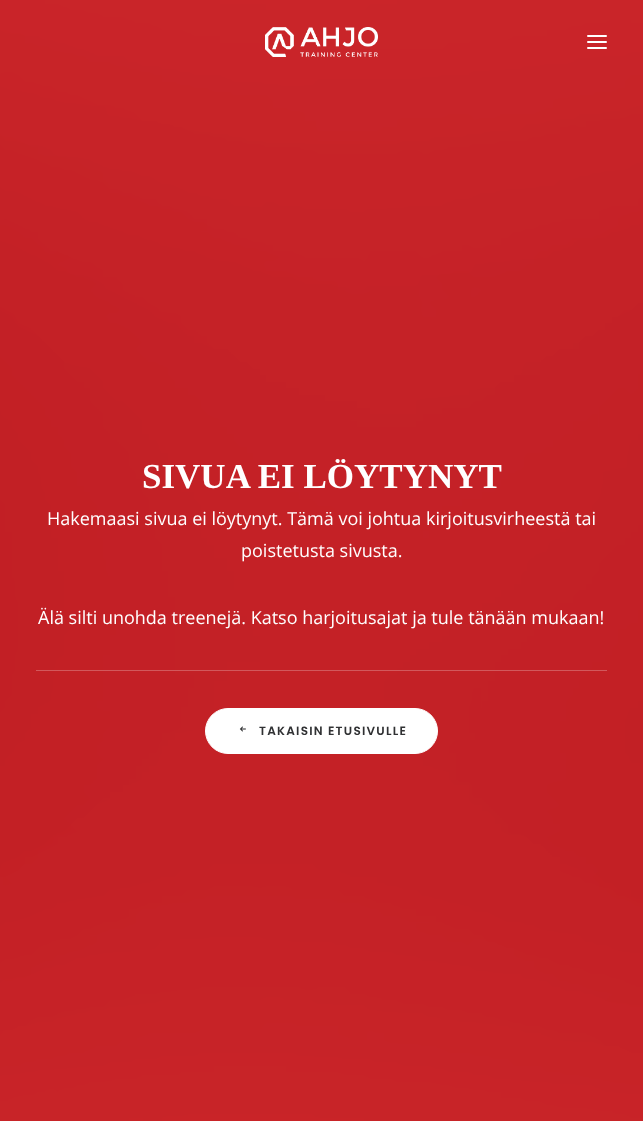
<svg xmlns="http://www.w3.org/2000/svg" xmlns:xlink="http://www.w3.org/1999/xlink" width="643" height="1121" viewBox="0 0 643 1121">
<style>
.cls-1{font:bold 35px Liberation Serif;fill:#ffffff}
.cls-2{font:18px Open Sans;fill:#ffffff}
.cls-3{font:600 12px Poppins;letter-spacing:1.25px;fill:#303133}
</style>
<rect width="100%" height="100%" fill="#ffffff"/>
<image xlink:href="image1.png" x="0" y="0" width="643" height="1121"/>
<image xlink:href="image0.png" x="265" y="27" width="113" height="30"/>
<rect fill="#ffffff" x="587" y="41" width="20" height="2" rx="1"/>
<rect fill="#ffffff" x="587" y="35" width="20" height="2" rx="1"/>
<rect fill="#ffffff" x="587" y="47" width="20" height="2" rx="1"/>
<rect fill="#d2585c" x="36" y="670" width="571" height="1"/>
<rect fill="#ffffff" stroke="#ffffff" x="205.5" y="708.5" width="232" height="45" rx="22.5"/>
<image xlink:href="image2.png" x="239" y="726" width="7" height="6"/>
<text class="cls-1" x="142" y="488">SIVUA EI LÖYTYNYT</text>
<text class="cls-2" x="47" y="525">Hakemaasi sivua ei löytynyt. Tämä voi johtua kirjoitusvirheestä tai</text>
<text class="cls-2" x="241" y="557">poistetusta sivusta.</text>
<text class="cls-2" x="38" y="624">Älä silti unohda treenejä. Katso harjoitusajat ja tule tänään mukaan!</text>
<text class="cls-3" x="259" y="735">TAKAISIN ETUSIVULLE</text>
</svg>
